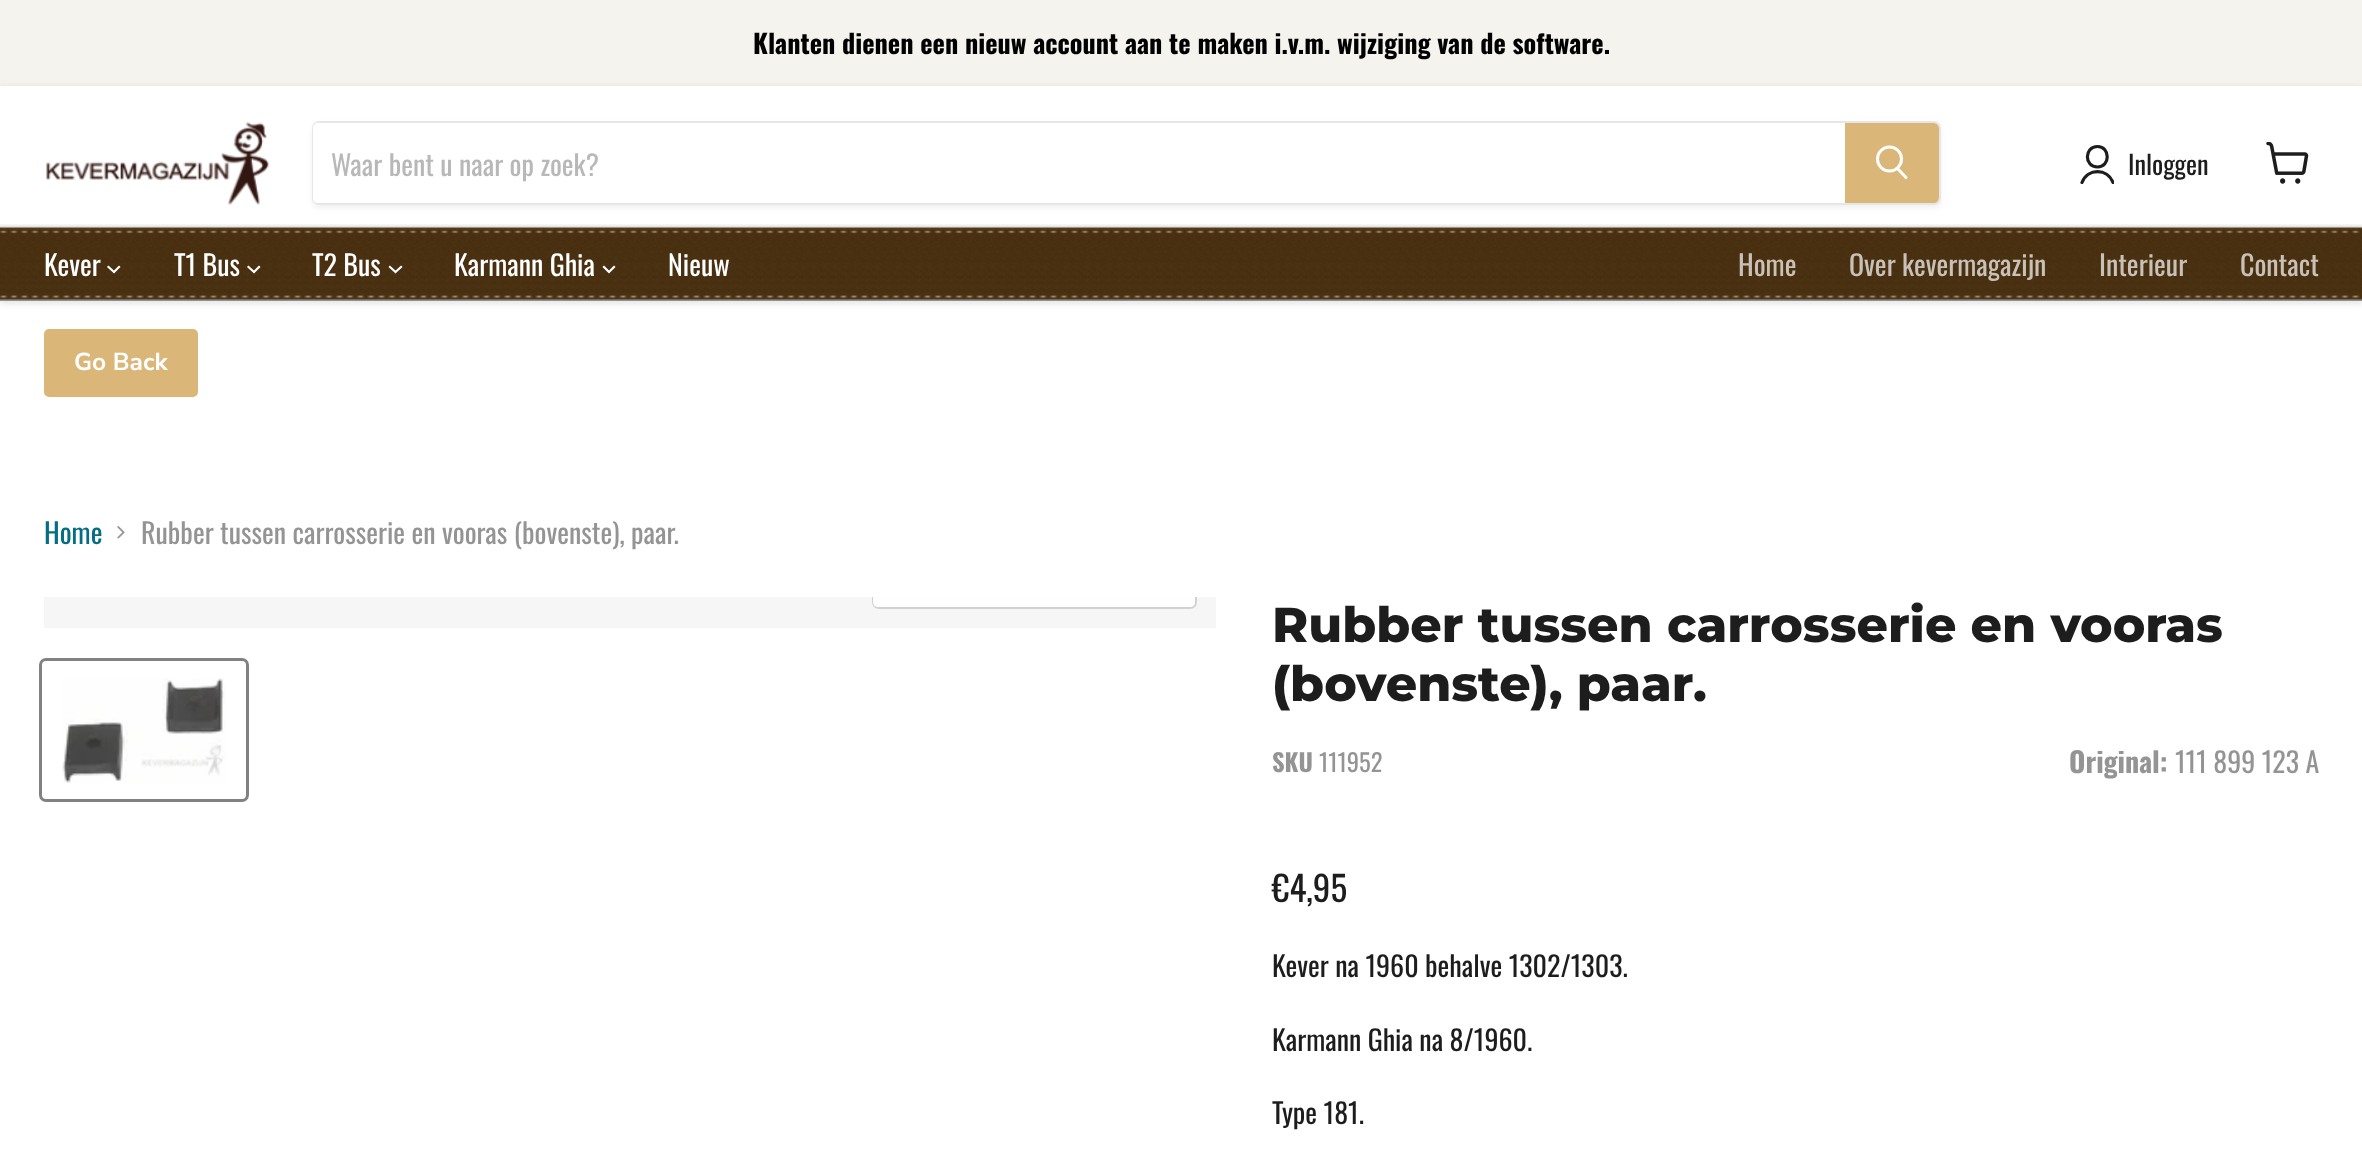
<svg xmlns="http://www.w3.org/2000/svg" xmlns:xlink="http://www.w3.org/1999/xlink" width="2362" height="1157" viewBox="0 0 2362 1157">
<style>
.cls-1{font:bold 26.25px Oswald;fill:#000000}
.cls-2{font:28px Oswald;fill:#b8b8b8}
.cls-3{font:26.25px Oswald;fill:#1d1d1d}
.cls-4{font:28px Oswald;fill:#ffffff}
.cls-5{font:28px Oswald;fill:#c8c1b8}
.cls-6{font:bold 24.5px Nunito Sans;fill:#ffffff}
.cls-7{font:28px Oswald;fill:#046e82}
.cls-8{font:28px Oswald;fill:#949494}
.cls-9{font:800 49px Montserrat;fill:#1d1d1d}
.cls-10{font:bold 24.5px Oswald;fill:#949494}
.cls-11{font:24.5px Oswald;fill:#949494}
.cls-12{font:bold 28px Oswald;fill:#949494}
.cls-13{font:35px Oswald;fill:#1d1d1d}
.cls-14{font:28px Oswald;fill:#1d1d1d}
</style>
<defs>
<clipPath id="clip1"><path d="M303 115H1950V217H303ZM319 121H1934C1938 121 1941 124 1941 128V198C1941 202 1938 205 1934 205H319C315 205 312 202 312 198V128C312 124 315 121 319 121Z" clip-rule="evenodd"/></clipPath>
<clipPath id="clip2"><rect x="2079" y="144" width="35" height="40"/></clipPath>
<clipPath id="clip3"><rect x="44" y="597" width="1172" height="31"/></clipPath>
</defs>
<rect width="100%" height="100%" fill="#ffffff"/>
<rect fill="#f5f3ed" x="0" y="0" width="2362" height="86"/>
<rect fill="#808080" fill-opacity="0.25" filter="blur(3.5px)" x="0" y="88" width="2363" height="215"/>
<rect fill="#ffffff" x="0" y="86" width="2362" height="138"/>
<image xlink:href="image0.png" x="46" y="121" width="224" height="84"/>
<g clip-path="url(#clip1)">
<rect fill="#808080" fill-opacity="0.11" filter="blur(2.5px)" x="312" y="124" width="1629" height="84" rx="7"/>
</g>
<rect fill="none" stroke="#808080" stroke-opacity="0.2" stroke-width="2" x="313" y="122" width="1627" height="82" rx="6"/>
<path fill="#ffffff" d="M318 123H1845V203H318C315 203 313 201 313 198V128C313 125 315 123 318 123Z"/>
<path fill="#dab779" stroke="#dab779" stroke-width="2" d="M1846 124H1934C1936 124 1938 126 1938 128V198C1938 200 1936 202 1934 202H1846Z"/>
<path fill="none" stroke="#ffffff" stroke-width="3" stroke-linecap="round" d="M1906 177.5L1898 169"/>
<circle fill="none" stroke="#ffffff" stroke-width="3" cx="1889.5" cy="159" r="12"/>
<path fill="none" stroke="#1d1d1d" stroke-width="3.2" stroke-linecap="round" stroke-linejoin="round" d="M2097.5 167C2110.5 167 2110.5 146.5 2097.5 146.5C2084 146.5 2084 167 2097.5 167Z"/>
<g clip-path="url(#clip2)">
<path fill="none" stroke="#1d1d1d" stroke-width="3.2" stroke-linecap="round" stroke-linejoin="round" d="M2113 182.5C2107.5 168 2087.5 168 2082 182.5"/>
</g>
<image xlink:href="image1.png" x="2266" y="142" width="43" height="42"/>
<image xlink:href="image2.png" x="0" y="224" width="2362" height="77"/>
<path fill="none" stroke="#ffffff" stroke-width="2.2" stroke-linecap="square" d="M114 272L119 267M114 272L108.5 267"/>
<path fill="none" stroke="#ffffff" stroke-width="2.2" stroke-linecap="square" d="M254 272L259 267M254 272L248.5 267"/>
<path fill="none" stroke="#ffffff" stroke-width="2.2" stroke-linecap="square" d="M395.5 272L401 267M395.5 272L390 267"/>
<path fill="none" stroke="#ffffff" stroke-width="2.2" stroke-linecap="square" d="M609 272L614 267M609 272L604 267"/>
<rect fill="#dab779" stroke="#dab779" stroke-width="2" x="45" y="330" width="152" height="66" rx="4"/>
<image xlink:href="image3.png" x="117" y="526" width="8" height="13"/>
<rect fill="#f6f6f6" x="44" y="597" width="1172" height="31"/>
<g clip-path="url(#clip3)">
<rect fill="none" stroke="#d1d1d1" stroke-width="2" x="873" y="558" width="323" height="50" rx="6"/>
</g>
<path fill="#ffffff" fill-opacity="0.9" d="M873 597H1195V602C1195 605 1193 607 1190 607H878C875 607 873 605 873 602Z"/>
<rect fill="none" stroke="#818181" stroke-width="3" x="40.5" y="659.5" width="207" height="141" rx="5.5"/>
<image xlink:href="image4.png" x="62" y="678" width="164" height="105"/>
<text class="cls-1" x="753" y="54">Klanten dienen een nieuw account aan te maken i.v.m. wijziging van de software.</text>
<text class="cls-2" x="331" y="176">Waar bent u naar op zoek?</text>
<text class="cls-3" x="2128" y="175">Inloggen</text>
<text class="cls-4" x="44" y="276">Kever</text>
<text class="cls-4" x="174" y="276">T1 Bus</text>
<text class="cls-4" x="312" y="276">T2 Bus</text>
<text class="cls-4" x="454" y="276">Karmann Ghia</text>
<text class="cls-4" x="668" y="276">Nieuw</text>
<text class="cls-5" x="1738" y="276">Home</text>
<text class="cls-5" x="1849" y="276">Over kevermagazijn</text>
<text class="cls-5" x="2099" y="276">Interieur</text>
<text class="cls-5" x="2240" y="276">Contact</text>
<text class="cls-6" x="74" y="370">Go Back</text>
<text class="cls-7" x="44" y="544">Home</text>
<text class="cls-8" x="141" y="544">Rubber tussen carrosserie en vooras (bovenste), paar.</text>
<text class="cls-9"><tspan x="1272" y="642">Rubber tussen carrosserie en vooras</tspan><tspan x="1272" y="701">(bovenste), paar.</tspan></text>
<text class="cls-10" x="1272" y="772">SKU</text>
<text class="cls-11" x="1319" y="772">111952</text>
<text class="cls-12" x="2069" y="773">Original:</text>
<text class="cls-8" x="2175" y="773">111 899 123 A</text>
<text class="cls-13" x="1272" y="902">€4,95</text>
<text class="cls-14" x="1272" y="977">Kever na 1960 behalve 1302/1303.</text>
<text class="cls-14" x="1272" y="1051">Karmann Ghia na 8/1960.</text>
<text class="cls-14" x="1272" y="1124">Type 181.</text>
</svg>
